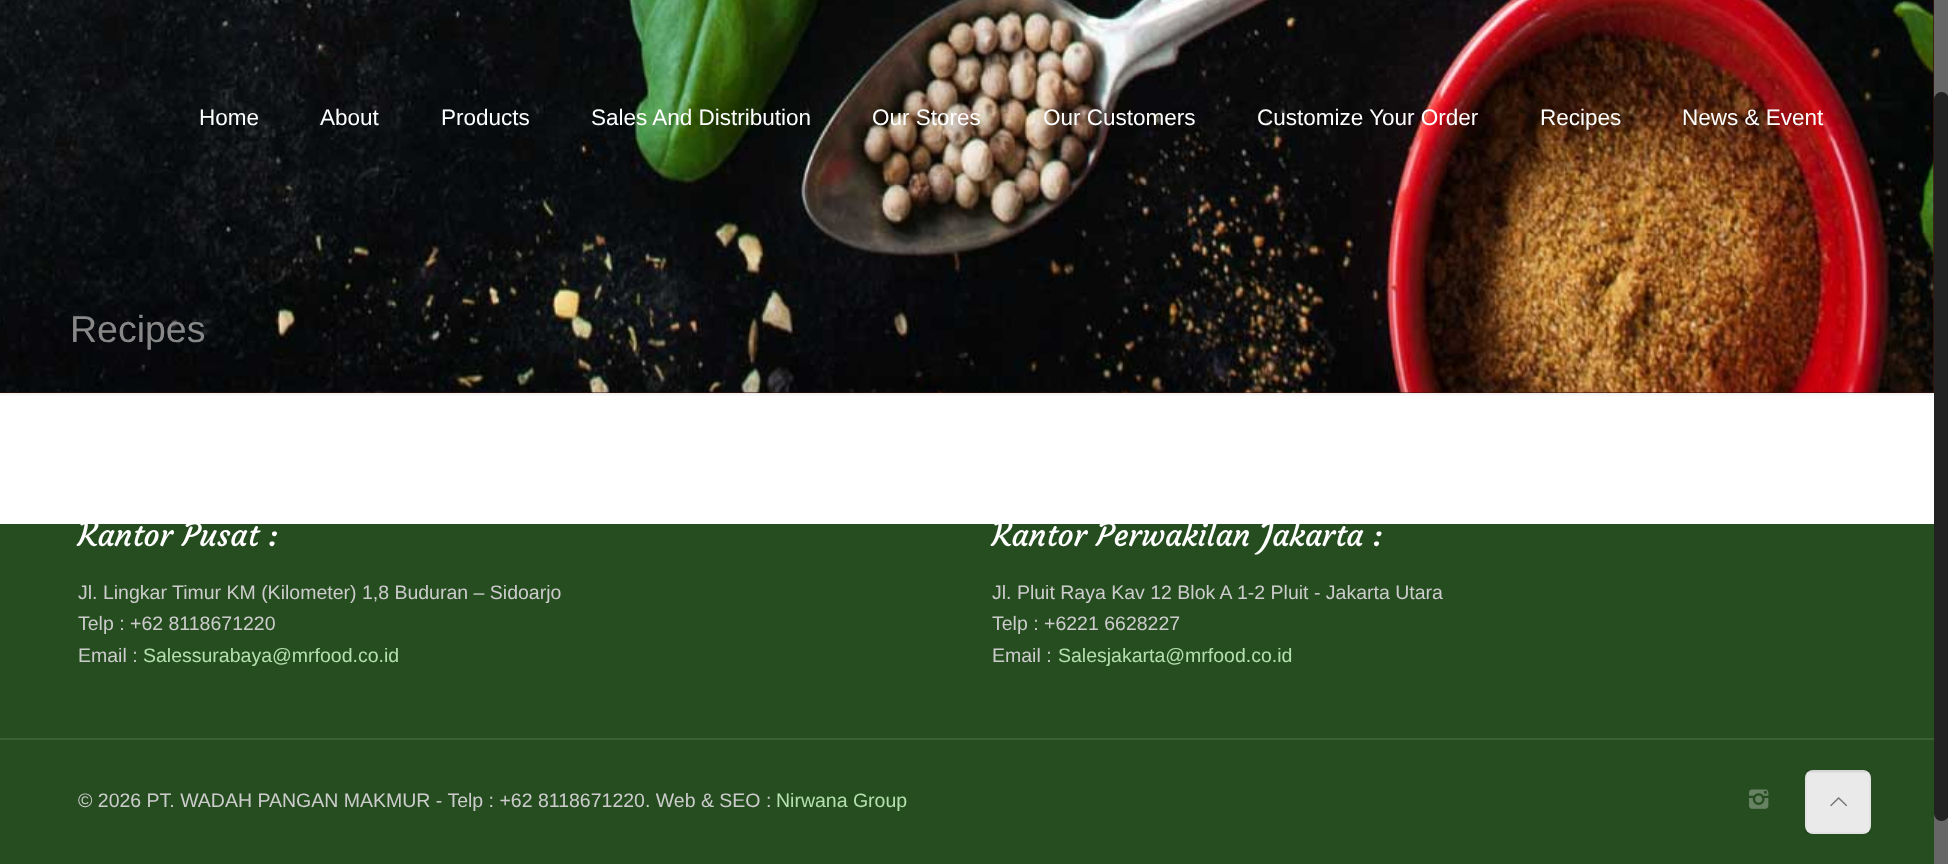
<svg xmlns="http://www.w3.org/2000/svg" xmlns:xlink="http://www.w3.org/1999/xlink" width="1948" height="864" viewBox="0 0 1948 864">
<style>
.cls-1{font:22.5px Liberation Sans;fill:#ffffff}
.cls-2{font:37.5px Liberation Sans;fill:#888888}
.cls-3{font:31.5px Courgette;fill:#ffffff}
.cls-4{font:19.5px Liberation Sans;fill:#cccccc}
.cls-5{font:19.5px Liberation Sans;fill:#b3e0ac}
</style>
<rect width="100%" height="100%" fill="#264d20"/>
<rect fill="#3e150f" x="0" y="0" width="1934" height="393"/>
<image xlink:href="image0.png" x="0" y="0" width="1934" height="393"/>
<rect fill="#000000" fill-opacity="0.03" x="842" y="101" width="2" height="7"/>
<rect fill="#000000" fill-opacity="0.03" x="1011" y="72" width="2" height="90"/>
<rect fill="#000000" fill-opacity="0.03" x="1652" y="108" width="2" height="54"/>
<rect fill="#ffffff" x="0" y="393" width="1934" height="131"/>
<image xlink:href="image1.png" x="0" y="392" width="1933" height="4"/>
<rect fill="#3c5f36" x="0" y="738" width="1934" height="2"/>
<image xlink:href="image2.png" x="1749" y="789" width="20" height="20"/>
<rect fill="#f7f7f7" x="1805" y="770" width="66" height="64" rx="8"/>
<image xlink:href="image3.png" x="1807" y="770" width="62" height="3"/>
<rect fill="none" stroke="#000000" stroke-opacity="0.03" stroke-width="2" x="1806" y="771" width="64" height="62"/>
<rect fill="#000000" fill-opacity="0.05" x="1805" y="770" width="66" height="64"/>
<image xlink:href="image4.png" x="1830" y="797" width="17" height="10"/>
<rect fill="#666666" x="1934" y="0" width="14" height="864"/>
<rect fill="#222222" x="1934" y="92" width="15" height="729" rx="7.5"/>
<text class="cls-1" x="199" y="125">Home</text>
<text class="cls-1" x="320" y="125">About</text>
<text class="cls-1" x="441" y="125">Products</text>
<text class="cls-1" x="591" y="125">Sales And Distribution</text>
<text class="cls-1" x="872" y="125">Our Stores</text>
<text class="cls-1" x="1043" y="125">Our Customers</text>
<text class="cls-1" x="1257" y="125">Customize Your Order</text>
<text class="cls-1" x="1540" y="125">Recipes</text>
<text class="cls-1" x="1682" y="125">News &amp; Event</text>
<text class="cls-2" x="70" y="342">Recipes</text>
<text class="cls-3" x="78" y="546">Kantor Pusat :</text>
<text class="cls-4"><tspan x="78" y="599">Jl. Lingkar Timur KM (Kilometer) 1,8 Buduran – Sidoarjo</tspan><tspan x="78" y="630">Telp : +62 8118671220</tspan><tspan x="78" y="662">Email :</tspan></text>
<text class="cls-5" x="143" y="662">Salessurabaya@mrfood.co.id</text>
<text class="cls-3" x="992" y="546">Kantor Perwakilan Jakarta :</text>
<text class="cls-4"><tspan x="992" y="599">Jl. Pluit Raya Kav 12 Blok A 1-2 Pluit - Jakarta Utara</tspan><tspan x="992" y="630">Telp : +6221 6628227</tspan><tspan x="992" y="662">Email :</tspan></text>
<text class="cls-5" x="1058" y="662">Salesjakarta@mrfood.co.id</text>
<text class="cls-4" x="78" y="807">© 2026 PT. WADAH PANGAN MAKMUR - Telp : +62 8118671220. Web &amp; SEO :</text>
<text class="cls-5" x="776" y="807">Nirwana Group</text>
</svg>
